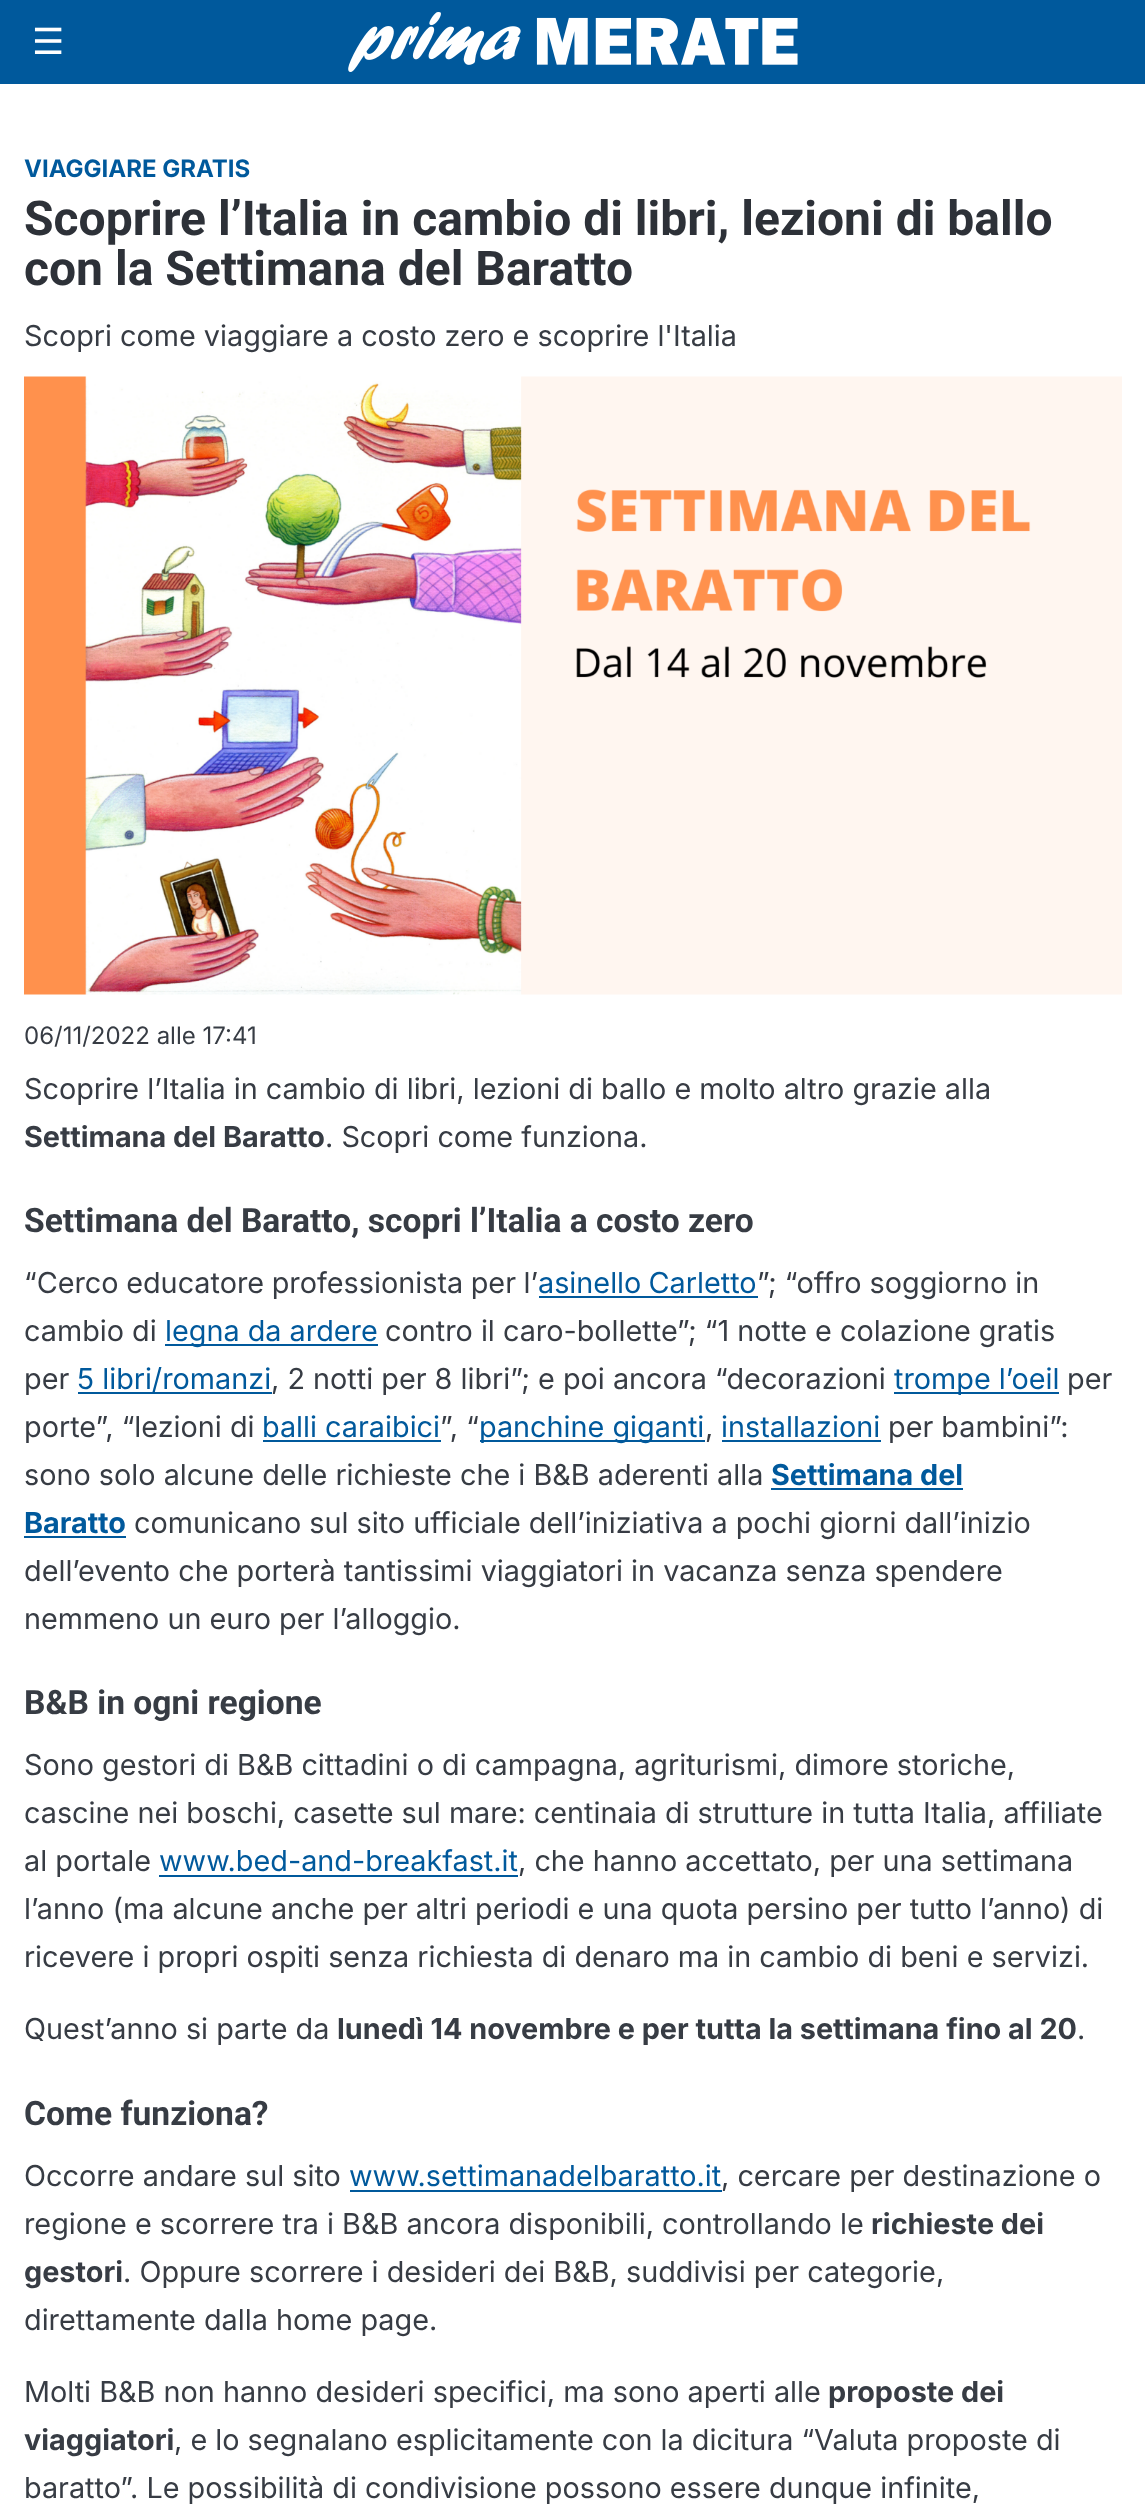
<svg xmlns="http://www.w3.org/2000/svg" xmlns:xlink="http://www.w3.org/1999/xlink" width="1145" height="2517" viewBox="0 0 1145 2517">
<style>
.cls-1{font:36px DejaVu Sans;fill:#ffffff}
.cls-2{font:bold 24px Inter;fill:#00599c}
.cls-3{font:bold 48px Roboto;fill:#2d3138}
.cls-4{font:28.8px Inter;fill:#373c44}
.cls-5{font:24px Inter;fill:#373c44}
.cls-6{font:bold 28.8px Inter;fill:#373c44}
.cls-7{font:bold 33.6px Roboto;fill:#373c44}
.cls-8{font:28.8px Inter;fill:#00599c}
.cls-9{font:bold 28.8px Inter;fill:#00599c}
</style>
<rect width="100%" height="100%" fill="#ffffff"/>
<rect fill="#00599c" x="0" y="0" width="1145" height="84"/>
<image xlink:href="image0.png" x="348" y="12" width="450" height="60"/>
<image xlink:href="image1.png" x="24" y="376" width="1098" height="619"/>
<rect fill="#00599c" x="539" y="1296" width="219" height="2"/>
<rect fill="#00599c" x="165" y="1344" width="213" height="2"/>
<rect fill="#00599c" x="78" y="1392" width="194" height="2"/>
<rect fill="#00599c" x="894" y="1392" width="165" height="2"/>
<rect fill="#00599c" x="263" y="1440" width="178" height="2"/>
<rect fill="#00599c" x="480" y="1440" width="225" height="2"/>
<rect fill="#00599c" x="722" y="1440" width="159" height="2"/>
<rect fill="#00599c" x="771" y="1488" width="192" height="2"/>
<rect fill="#00599c" x="24" y="1536" width="102" height="2"/>
<rect fill="#00599c" x="159" y="1875" width="359" height="2"/>
<rect fill="#00599c" x="350" y="2190" width="372" height="2"/>
<text class="cls-1" x="32" y="54">☰</text>
<text class="cls-2" x="24" y="177">VIAGGIARE GRATIS</text>
<text class="cls-3"><tspan x="24" y="235">Scoprire l’Italia in cambio di libri, lezioni di ballo</tspan><tspan x="24" y="285">con la Settimana del Baratto</tspan></text>
<text class="cls-4" x="24" y="346">Scopri come viaggiare a costo zero e scoprire l'Italia</text>
<text class="cls-5" x="24" y="1044">06/11/2022 alle 17:41</text>
<text class="cls-4" x="24" y="1099">Scoprire l’Italia in cambio di libri, lezioni di ballo e molto altro grazie alla</text>
<text class="cls-6" x="24" y="1147">Settimana del Baratto</text>
<text class="cls-4" x="325" y="1147">. Scopri come funziona.</text>
<text class="cls-7" x="24" y="1232">Settimana del Baratto, scopri l’Italia a costo zero</text>
<text class="cls-4" x="24" y="1293" word-spacing="-0.5">“Cerco educatore professionista per l’</text>
<text class="cls-8" x="538" y="1293" word-spacing="-1">asinello Carletto</text>
<text class="cls-4" x="757" y="1293">”; “offro soggiorno in</text>
<text class="cls-4" x="24" y="1341">cambio di</text>
<text class="cls-8" x="165" y="1341">legna da ardere</text>
<text class="cls-4" x="385" y="1341">contro il caro-bollette”; “1 notte e colazione gratis</text>
<text class="cls-4" x="24" y="1389">per</text>
<text class="cls-8" x="77" y="1389">5 libri/romanzi</text>
<text class="cls-4" x="271" y="1389">, 2 notti per 8 libri”; e poi ancora “decorazioni</text>
<text class="cls-8" x="894" y="1389">trompe l’oeil</text>
<text class="cls-4" x="1067" y="1389">per</text>
<text class="cls-4" x="24" y="1437">porte”, “lezioni di</text>
<text class="cls-8" x="262" y="1437">balli caraibici</text>
<text class="cls-4" x="440" y="1437">”, “</text>
<text class="cls-8" x="479" y="1437">panchine giganti</text>
<text class="cls-4" x="705" y="1437">,</text>
<text class="cls-8" x="721" y="1437">installazioni</text>
<text class="cls-4" x="888" y="1437">per bambini”:</text>
<text class="cls-4" x="24" y="1485">sono solo alcune delle richieste che i B&amp;B aderenti alla</text>
<text class="cls-9" x="771" y="1485">Settimana del</text>
<text class="cls-9" x="24" y="1533">Baratto</text>
<text class="cls-4" x="134" y="1533">comunicano sul sito ufficiale dell’iniziativa a pochi giorni dall’inizio</text>
<text class="cls-4"><tspan x="24" y="1581">dell’evento che porterà tantissimi viaggiatori in vacanza senza spendere</tspan><tspan x="24" y="1629">nemmeno un euro per l’alloggio.</tspan></text>
<text class="cls-7" x="24" y="1714">B&amp;B in ogni regione</text>
<text class="cls-4"><tspan x="24" y="1775">Sono gestori di B&amp;B cittadini o di campagna, agriturismi, dimore storiche,</tspan><tspan x="24" y="1823">cascine nei boschi, casette sul mare: centinaia di strutture in tutta Italia, affiliate</tspan><tspan x="24" y="1871">al portale</tspan></text>
<text class="cls-8" x="159" y="1871">www.bed-and-breakfast.it</text>
<text class="cls-4" x="518" y="1871">, che hanno accettato, per una settimana</text>
<text class="cls-4"><tspan x="24" y="1919">l’anno (ma alcune anche per altri periodi e una quota persino per tutto l’anno) di</tspan><tspan x="24" y="1967">ricevere i propri ospiti senza richiesta di denaro ma in cambio di beni e servizi.</tspan></text>
<text class="cls-4" x="24" y="2039">Quest’anno si parte da</text>
<text class="cls-6" x="337" y="2039">lunedì 14 novembre e per tutta la settimana fino al 20</text>
<text class="cls-4" x="1077" y="2039">.</text>
<text class="cls-7" x="24" y="2125">Come funziona?</text>
<text class="cls-4" x="24" y="2186">Occorre andare sul sito</text>
<text class="cls-8" x="349" y="2186">www.settimanadelbaratto.it</text>
<text class="cls-4" x="721" y="2186">, cercare per destinazione o</text>
<text class="cls-4" x="24" y="2234">regione e scorrere tra i B&amp;B ancora disponibili, controllando le</text>
<text class="cls-6" x="871" y="2234">richieste dei</text>
<text class="cls-6" x="24" y="2282">gestori</text>
<text class="cls-4" x="123" y="2282">. Oppure scorrere i desideri dei B&amp;B, suddivisi per categorie,</text>
<text class="cls-4" x="24" y="2330">direttamente dalla home page.</text>
<text class="cls-4" x="24" y="2402">Molti B&amp;B non hanno desideri specifici, ma sono aperti alle</text>
<text class="cls-6" x="828" y="2402">proposte dei</text>
<text class="cls-6" x="24" y="2450">viaggiatori</text>
<text class="cls-4" x="174" y="2450">, e lo segnalano esplicitamente con la dicitura “Valuta proposte di</text>
<text class="cls-4" x="24" y="2498">baratto”. Le possibilità di condivisione possono essere dunque infinite,</text>
</svg>
